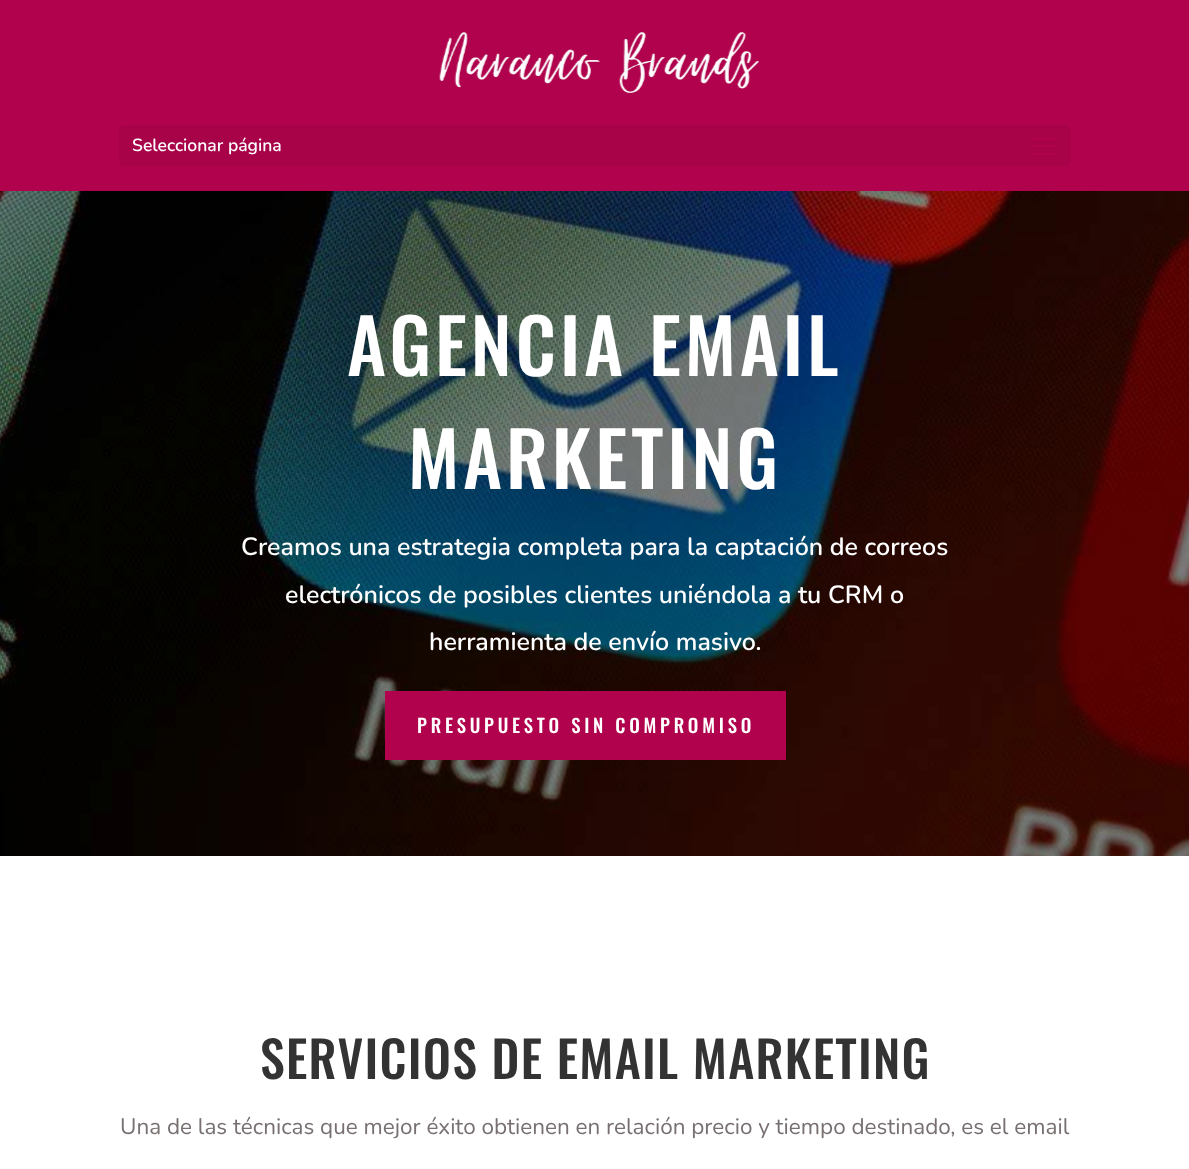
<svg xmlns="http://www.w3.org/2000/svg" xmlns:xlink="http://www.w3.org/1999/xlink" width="1189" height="1169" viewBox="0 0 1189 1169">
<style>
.cls-1{font:200 17.5px Nunito;fill:#ffffff}
.cls-2{font:500 75px Oswald;letter-spacing:3.75px;fill:#ffffff}
.cls-3{font:200 25px Nunito;fill:#ffffff}
.cls-4{font:500 18.75px Oswald;letter-spacing:3.75px;fill:#ffffff}
.cls-5{font:500 50px Oswald;letter-spacing:1.25px;fill:#333333}
.cls-6{font:200 22.5px 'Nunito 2';fill:#787070}
</style>
<rect width="100%" height="100%" fill="#ffffff"/>
<rect fill="#b1024d" x="0" y="0" width="1189" height="191"/>
<image xlink:href="image0.png" x="439" y="31" width="321" height="63"/>
<rect fill="#a80249" x="119" y="125" width="952" height="41" rx="6"/>
<image xlink:href="image1.png" x="1033" y="137" width="24" height="18"/>
<image xlink:href="image2.png" x="0" y="191" width="1189" height="665"/>
<rect fill="#b1024d" x="385" y="691" width="401" height="69"/>
<text class="cls-1" x="132" y="151">Seleccionar página</text>
<text class="cls-2" x="347" y="376">AGENCIA EMAIL</text>
<text class="cls-2" x="408" y="489">MARKETING</text>
<text class="cls-3" x="241" y="555">Creamos una estrategia completa para la captación de correos</text>
<text class="cls-3" x="285" y="603">electrónicos de posibles clientes uniéndola a tu CRM o</text>
<text class="cls-3" x="429" y="650">herramienta de envío masivo.</text>
<text class="cls-4" x="417" y="733">PRESUPUESTO SIN COMPROMISO</text>
<text class="cls-5" x="260" y="1079">SERVICIOS DE EMAIL MARKETING</text>
<text class="cls-6" x="120" y="1134">Una de las técnicas que mejor éxito obtienen en relación precio y tiempo destinado, es el email</text>
</svg>
